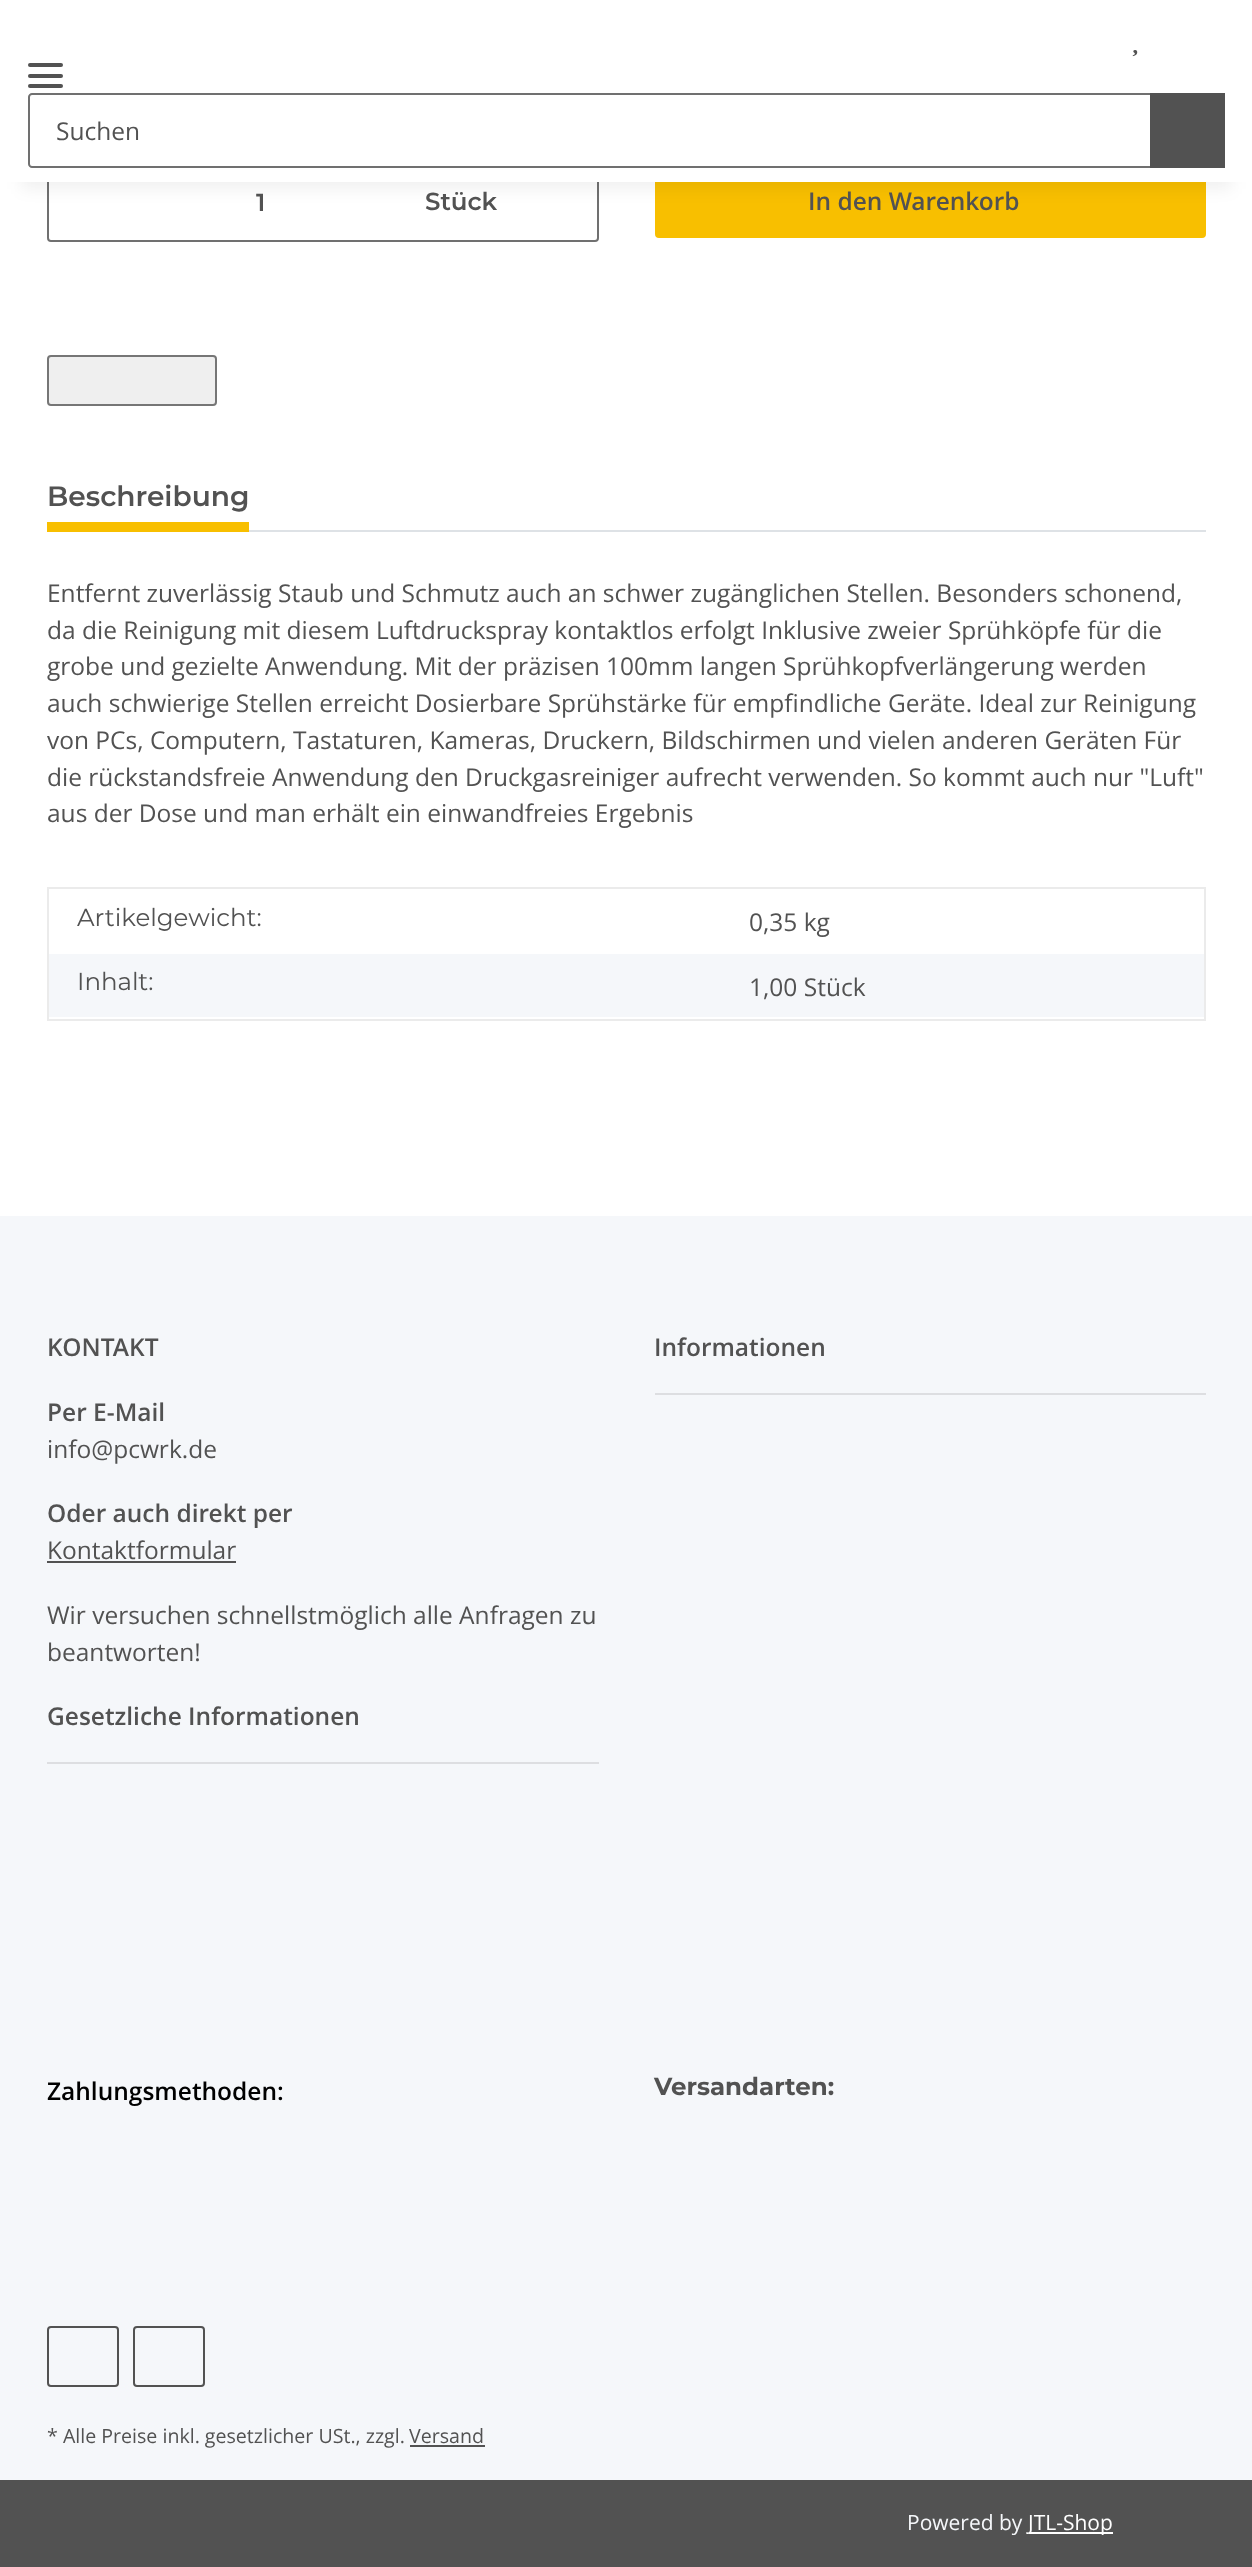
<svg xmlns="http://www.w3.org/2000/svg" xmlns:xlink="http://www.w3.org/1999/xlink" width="1252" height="2567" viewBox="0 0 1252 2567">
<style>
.cls-1{font:24.5px Open Sans;fill:#525252}
.cls-2{font:600 24.5px Montserrat;fill:#525252}
.cls-3{font:600 24.5px Open Sans;fill:#525252}
.cls-4{font:600 28px Montserrat;fill:#525252}
.cls-5{font:24.5px Montserrat;fill:#525252}
.cls-6{font:600 24.5px Open Sans;fill:#000000}
.cls-7{font:bold 24.5px Montserrat;fill:#525252}
.cls-8{font:19.6px Open Sans;fill:#525252}
.cls-9{font:21px Open Sans;fill:#f5f7fa}
.cls-10{font:21px Open Sans;fill:#ffffff}
</style>
<rect width="100%" height="100%" fill="#f5f7fa"/>
<rect fill="#ffffff" x="0" y="182" width="1252" height="1034"/>
<rect fill="none" stroke="#707070" stroke-width="2" x="48" y="164" width="550" height="77" rx="3"/>
<rect fill="#f8bf00" stroke="#f8bf00" stroke-width="2" x="656" y="164" width="549" height="73" rx="3"/>
<rect fill="#000000" fill-opacity="0.06" filter="blur(8px)" x="21" y="49" width="1211" height="140"/>
<rect fill="#ffffff" x="0" y="0" width="1252" height="182"/>
<image xlink:href="image0.png" x="1132" y="50" width="6" height="7"/>
<rect fill="#525252" x="28" y="74" width="35" height="4" rx="2"/>
<rect fill="#525252" x="28" y="63" width="35" height="4" rx="2"/>
<rect fill="#525252" x="28" y="84" width="35" height="4" rx="2"/>
<path fill="none" stroke="#707070" stroke-width="2" d="M32 94H1151V167H32C30.5 167 29 165.5 29 164V97C29 95.5 30.5 94 32 94Z"/>
<rect fill="#525252" x="1150" y="93" width="75" height="75"/>
<rect fill="#efefef" stroke="#767676" stroke-width="2" x="48" y="356" width="168" height="49" rx="3"/>
<rect fill="#dee2e6" x="249" y="530" width="957" height="2"/>
<rect fill="#f8bf00" x="47" y="522" width="202" height="10"/>
<rect fill="#ebebeb" x="47" y="887" width="1159" height="2"/>
<rect fill="#ebebeb" x="1204" y="952" width="2" height="68"/>
<rect fill="#ebebeb" x="1204" y="887" width="2" height="67"/>
<rect fill="#ebebeb" x="47" y="1019" width="1159" height="2"/>
<rect fill="#ebebeb" x="47" y="952" width="2" height="68"/>
<rect fill="#ebebeb" x="47" y="887" width="2" height="67"/>
<rect fill="#f5f7fa" x="49" y="954" width="1155" height="63"/>
<rect fill="#525252" x="47" y="1561" width="189" height="2"/>
<rect fill="#dddee1" x="655" y="1393" width="551" height="2"/>
<rect fill="#dddee1" x="47" y="1762" width="552" height="2"/>
<rect fill="none" stroke="#525252" stroke-width="2" x="48" y="2327" width="70" height="59" rx="3"/>
<rect fill="none" stroke="#525252" stroke-width="2" x="134" y="2327" width="70" height="59" rx="3"/>
<rect fill="#525252" x="410" y="2445" width="75" height="2"/>
<rect fill="#525252" x="0" y="2480" width="1252" height="87"/>
<rect fill="#ffffff" x="1029" y="2532" width="84" height="2"/>
<text class="cls-1" x="56" y="140">Suchen</text>
<text class="cls-2" x="256" y="211">1</text>
<text class="cls-2" x="425" y="210">Stück</text>
<text class="cls-3" x="808" y="210">In den Warenkorb</text>
<text class="cls-4" x="47" y="506">Beschreibung</text>
<text class="cls-1"><tspan x="47" y="602">Entfernt zuverlässig Staub und Schmutz auch an schwer zugänglichen Stellen. Besonders schonend,</tspan><tspan x="47" y="639">da die Reinigung mit diesem Luftdruckspray kontaktlos erfolgt Inklusive zweier Sprühköpfe für die</tspan><tspan x="47" y="675">grobe und gezielte Anwendung. Mit der präzisen 100mm langen Sprühkopfverlängerung werden</tspan><tspan x="47" y="712">auch schwierige Stellen erreicht Dosierbare Sprühstärke für empfindliche Geräte. Ideal zur Reinigung</tspan><tspan x="47" y="749">von PCs, Computern, Tastaturen, Kameras, Druckern, Bildschirmen und vielen anderen Geräten Für</tspan><tspan x="47" y="786">die rückstandsfreie Anwendung den Druckgasreiniger aufrecht verwenden. So kommt auch nur "Luft"</tspan><tspan x="47" y="822">aus der Dose und man erhält ein einwandfreies Ergebnis</tspan></text>
<text class="cls-5" x="77" y="926">Artikelgewicht:</text>
<text class="cls-1" x="749" y="931">0,35 kg</text>
<text class="cls-5" x="77" y="990">Inhalt:</text>
<text class="cls-1" x="749" y="996">1,00 Stück</text>
<text class="cls-3" x="47" y="1356">KONTAKT</text>
<text class="cls-3" x="47" y="1421">Per E-Mail</text>
<text class="cls-1" x="47" y="1458">info@pcwrk.de</text>
<text class="cls-3" x="47" y="1522">Oder auch direkt per</text>
<text class="cls-1" x="47" y="1559">Kontaktformular</text>
<text class="cls-1"><tspan x="47" y="1624">Wir versuchen schnellstmöglich alle Anfragen zu</tspan><tspan x="47" y="1661">beantworten!</tspan></text>
<text class="cls-3" x="654" y="1356">Informationen</text>
<text class="cls-3" x="47" y="1725">Gesetzliche Informationen</text>
<text class="cls-6" x="47" y="2100">Zahlungsmethoden:</text>
<text class="cls-7" x="654" y="2095">Versandarten:</text>
<text class="cls-8" x="47" y="2443">* Alle Preise inkl. gesetzlicher USt., zzgl.</text>
<text class="cls-8" x="409" y="2443">Versand</text>
<text class="cls-9" x="907" y="2530">Powered by</text>
<text class="cls-10" x="1028" y="2530">JTL-Shop</text>
</svg>
